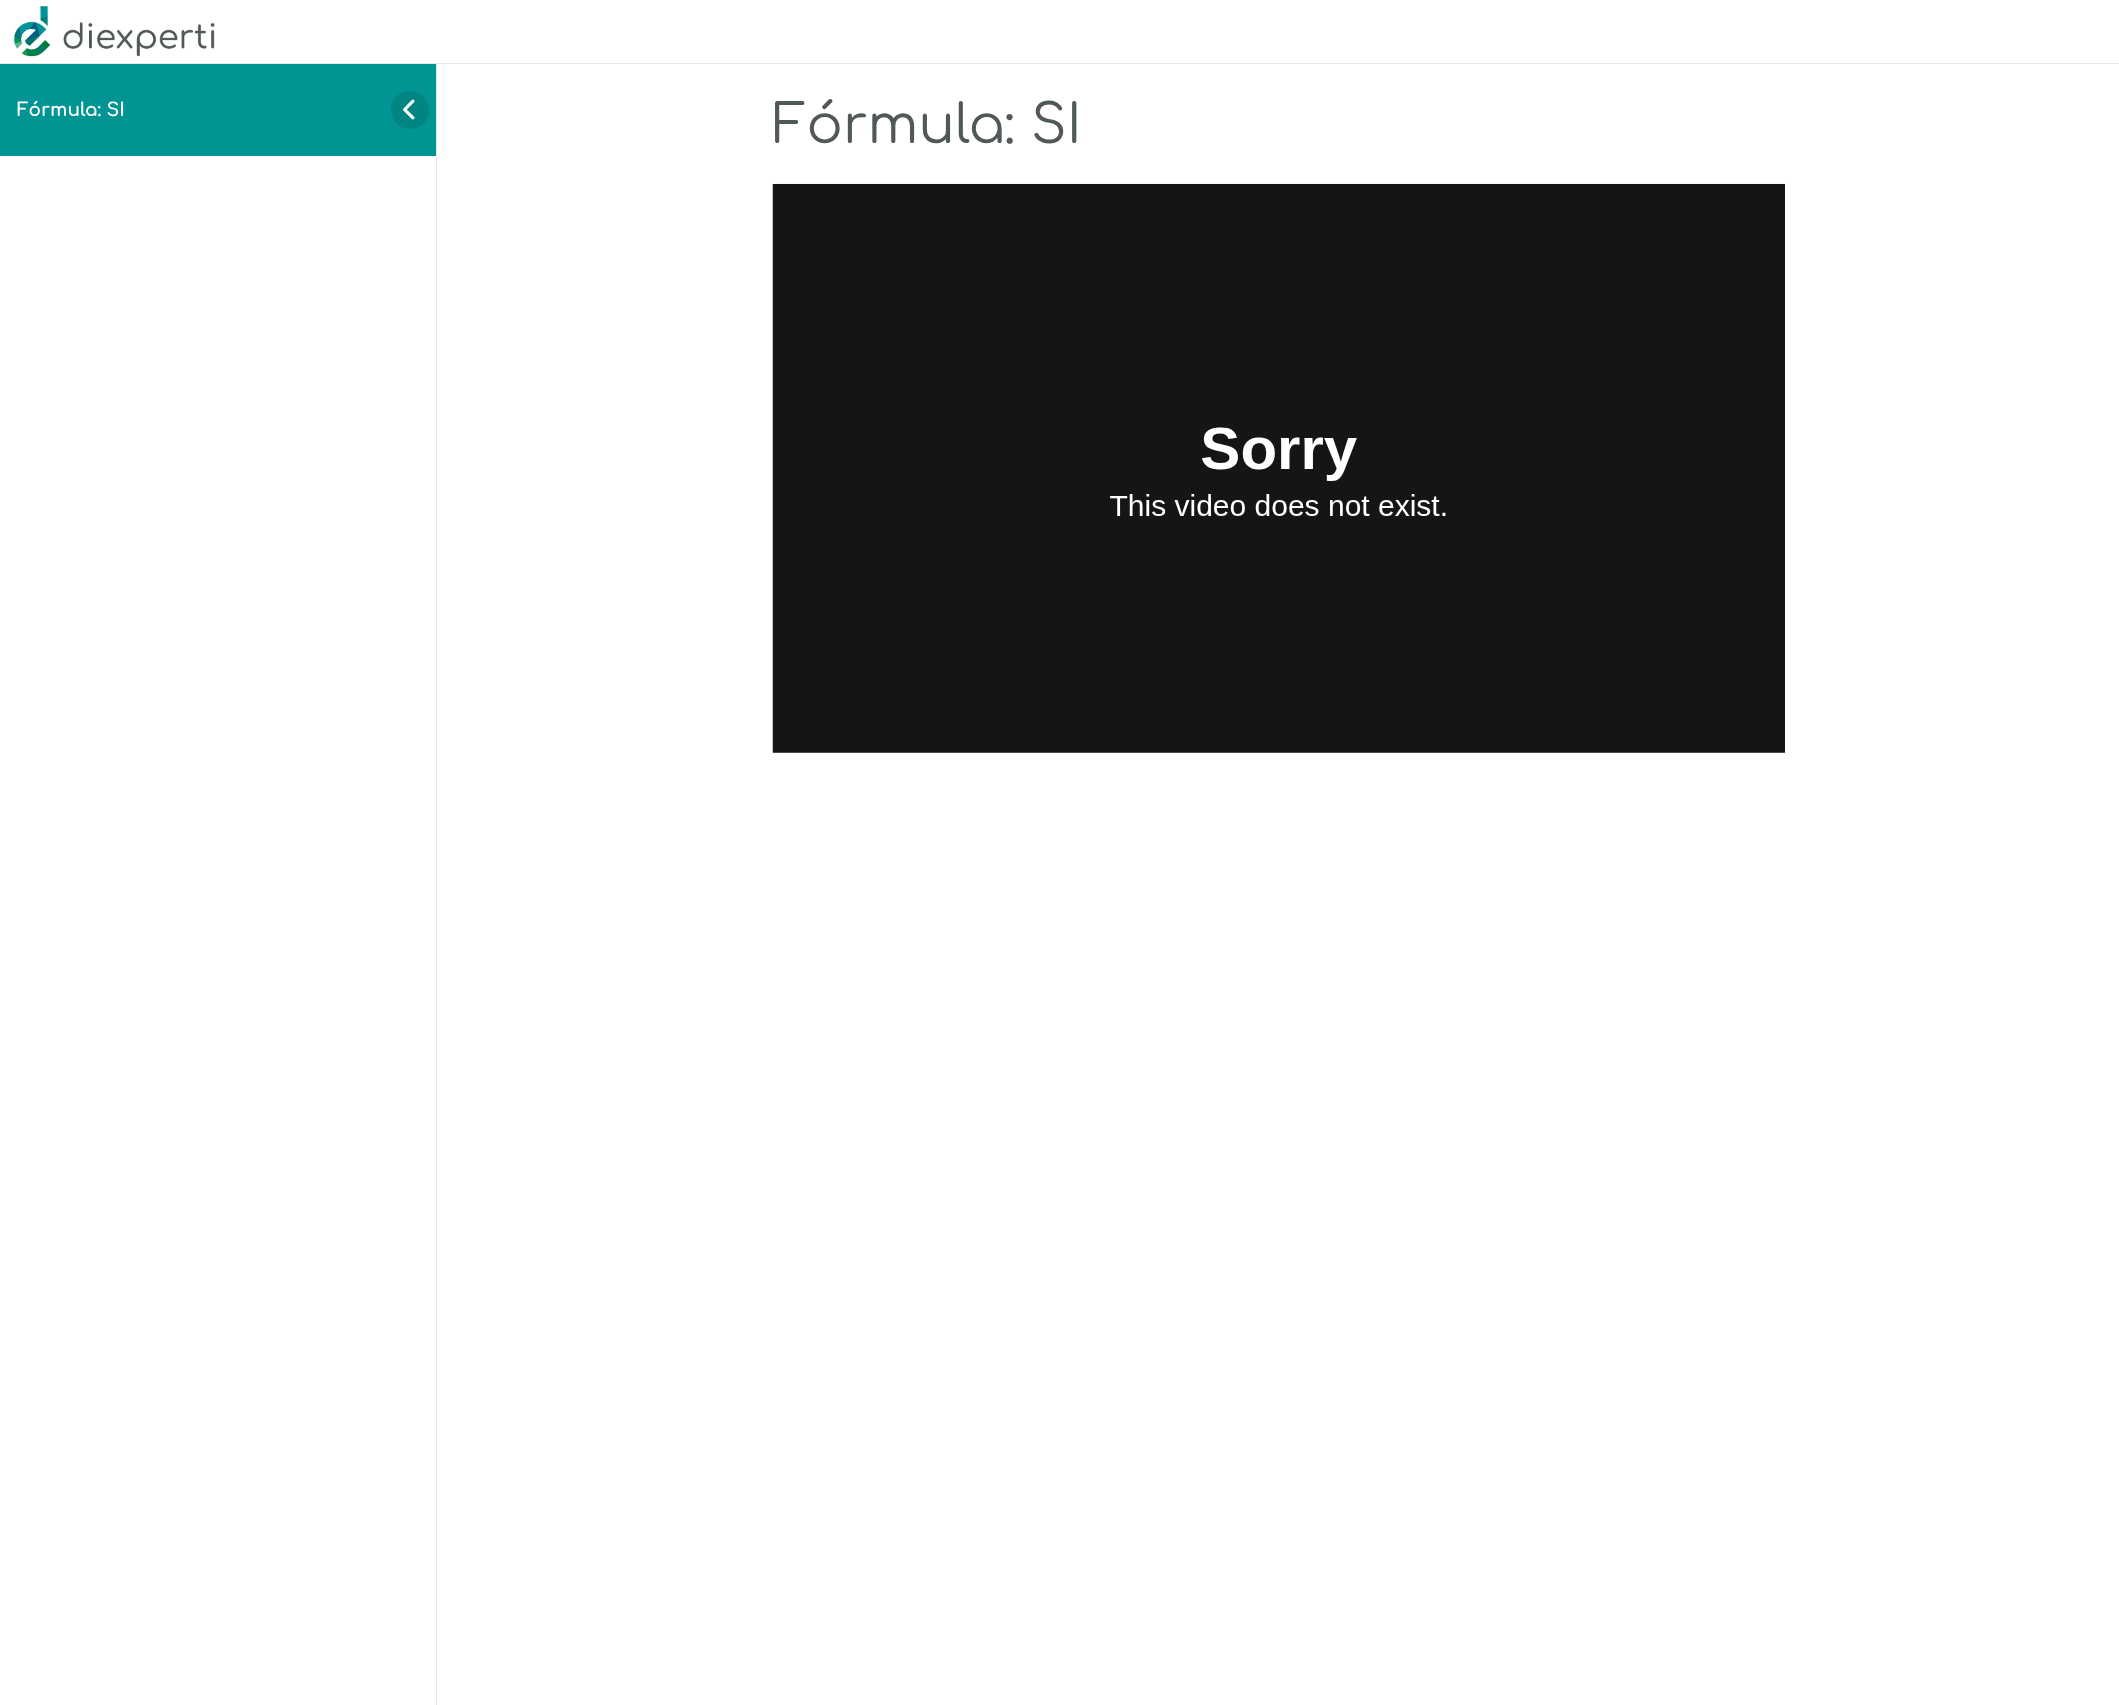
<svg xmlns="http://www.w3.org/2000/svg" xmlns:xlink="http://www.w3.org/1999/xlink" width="2119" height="1705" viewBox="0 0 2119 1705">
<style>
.cls-1{font:bold 18.5px Comfortaa;fill:#ffffff}
.cls-2{font:53.75px Comfortaa;fill:#515858}
</style>
<rect width="100%" height="100%" fill="#ffffff"/>
<rect fill="#e6e6e6" x="436" y="64" width="1" height="1641"/>
<rect fill="#009492" x="0" y="64" width="436" height="92"/>
<circle fill="#008583" cx="410" cy="110" r="19"/>
<image xlink:href="image0.png" x="403" y="99" width="12" height="21"/>
<rect fill="#e2e7ed" x="0" y="63" width="2119" height="1"/>
<image xlink:href="image1.png" x="13" y="6" width="202" height="51"/>
<image xlink:href="image2.png" x="772" y="183" width="1013" height="570"/>
<text class="cls-1" x="17" y="116">Fórmula: SI</text>
<text class="cls-2" x="773" y="143">Fórmula: SI</text>
</svg>
